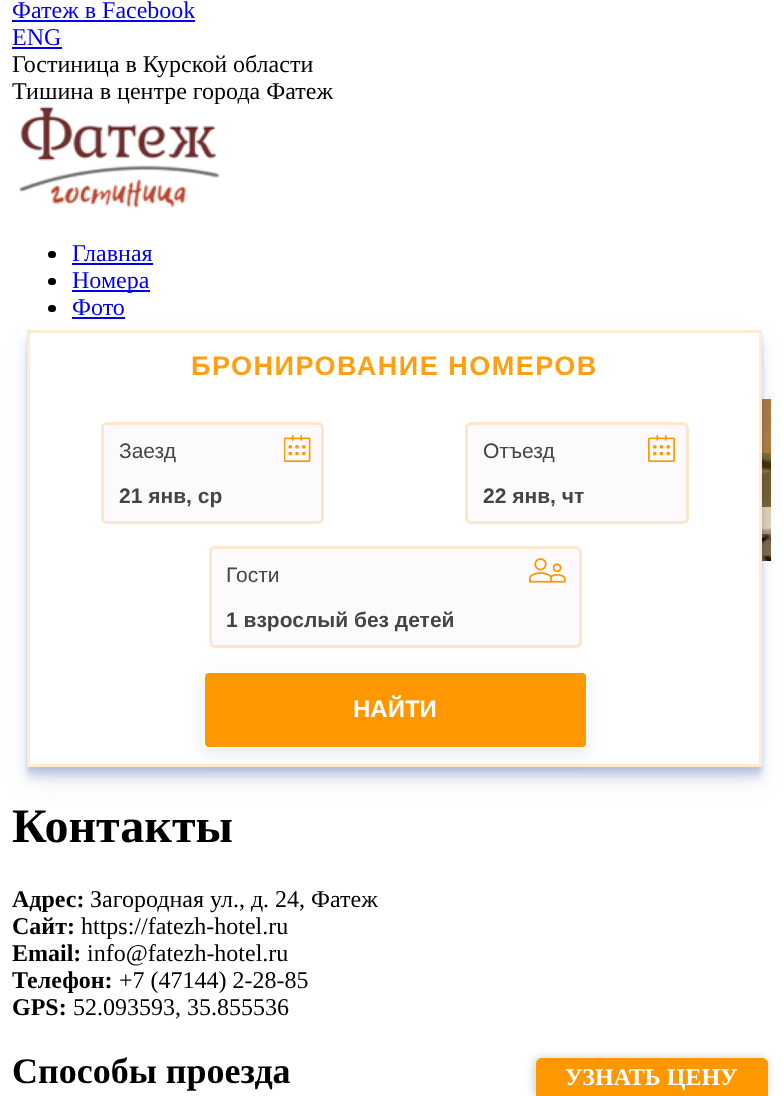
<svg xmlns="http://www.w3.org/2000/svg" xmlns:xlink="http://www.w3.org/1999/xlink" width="783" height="1096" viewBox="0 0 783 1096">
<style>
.cls-1{font:24px Liberation Serif;fill:#0000ee}
.cls-2{font:24px Liberation Serif;fill:#000000}
.cls-3{font:bold 27px Liberation Sans;letter-spacing:1.5px;fill:#ff9f11}
.cls-4{font:21px Liberation Sans;fill:#454545}
.cls-5{font:bold 21px Liberation Sans;fill:#454545}
.cls-6{font:bold 24px Liberation Sans;fill:#ffffff}
.cls-7{font:bold 48px Liberation Serif;fill:#000000}
.cls-8{font:bold 24px Liberation Serif;fill:#000000}
.cls-9{font:bold 36px Liberation Serif;fill:#000000}
.cls-10{font:bold 24px Liberation Serif;fill:#ffffff}
</style>
<rect width="100%" height="100%" fill="#ffffff"/>
<rect fill="#0000ee" x="12" y="20" width="183" height="2"/>
<rect fill="#0000ee" x="12" y="47" width="50" height="2"/>
<image xlink:href="image0.png" x="19" y="106" width="201" height="103"/>
<rect fill="#000000" x="48" y="251" width="8" height="7" rx="3.5"/>
<rect fill="#0000ee" x="72" y="263" width="81" height="2"/>
<rect fill="#000000" x="48" y="278" width="8" height="7" rx="3.5"/>
<rect fill="#0000ee" x="72" y="290" width="78" height="2"/>
<rect fill="#000000" x="48" y="305" width="8" height="7" rx="3.5"/>
<rect fill="#0000ee" x="72" y="317" width="53" height="2"/>
<image xlink:href="image4.png" x="762" y="399" width="9" height="54"/>
<image xlink:href="image5.png" x="762" y="453" width="9" height="54"/>
<image xlink:href="image6.png" x="762" y="507" width="9" height="27"/>
<image xlink:href="image7.png" x="762" y="534" width="9" height="27"/>
<rect fill="#19358c" fill-opacity="0.06" filter="blur(15px)" x="27" y="345" width="735" height="437"/>
<rect fill="#19358c" fill-opacity="0.06" filter="blur(4.5px)" x="27" y="342" width="735" height="437"/>
<rect fill="#19358c" fill-opacity="0.06" filter="blur(6px)" x="27" y="342" width="735" height="437"/>
<rect fill="#19358c" fill-opacity="0.06" filter="blur(3px)" x="27" y="339" width="735" height="437"/>
<rect fill="#19358c" fill-opacity="0.06" filter="blur(1.5px)" x="27" y="336" width="735" height="437"/>
<rect fill="#19358c" fill-opacity="0.06" filter="blur(1px)" x="27" y="333" width="735" height="437"/>
<rect fill="#ffffff" stroke="#ffebcf" stroke-width="3" x="28.5" y="331.5" width="732" height="434"/>
<rect fill="#fcfafc" stroke="#fde7cc" stroke-width="3" x="102.5" y="423.5" width="220" height="99" rx="4.5"/>
<image xlink:href="image1.png" x="284" y="435" width="27" height="27"/>
<rect fill="#fcfafc" stroke="#fde7cc" stroke-width="3" x="466.5" y="423.5" width="221" height="99" rx="4.5"/>
<image xlink:href="image2.png" x="648" y="435" width="27" height="27"/>
<rect fill="#fcfafc" stroke="#fde7cc" stroke-width="3" x="210.5" y="547.5" width="370" height="99" rx="4.5"/>
<image xlink:href="image3.png" x="529" y="558" width="37" height="25"/>
<rect fill="#000000" fill-opacity="0.08" filter="blur(9px)" x="203" y="677" width="385" height="78" rx="6"/>
<rect fill="#ff9800" stroke="#ffffff" stroke-width="2" x="204" y="672" width="383" height="76" rx="5"/>
<rect fill="#000000" fill-opacity="0.19" filter="blur(4.5px)" x="534" y="1058" width="233" height="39" rx="6"/>
<path fill="#ff9800" d="M542 1058H762C765.5 1058 768 1060.5 768 1064V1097H536V1064C536 1060.5 538.5 1058 542 1058Z"/>
<text class="cls-1"><tspan x="12" y="18">Фатеж в Facebook</tspan><tspan x="12" y="45">ENG</tspan></text>
<text class="cls-2"><tspan x="12" y="72">Гостиница в Курской области</tspan><tspan x="12" y="99">Тишина в центре города Фатеж</tspan></text>
<text class="cls-1"><tspan x="72" y="261">Главная</tspan><tspan x="72" y="288">Номера</tspan><tspan x="72" y="315">Фото</tspan></text>
<text class="cls-3" x="191" y="375">БРОНИРОВАНИЕ НОМЕРОВ</text>
<text class="cls-4" x="119" y="458">Заезд</text>
<text class="cls-5" x="119" y="503">21 янв, ср</text>
<text class="cls-4" x="483" y="458">Отъезд</text>
<text class="cls-5" x="483" y="503">22 янв, чт</text>
<text class="cls-4" x="226" y="582">Гости</text>
<text class="cls-5" x="226" y="627">1 взрослый без детей</text>
<text class="cls-6" x="353" y="717">НАЙТИ</text>
<text class="cls-7" x="12" y="842">Контакты</text>
<text class="cls-8" x="12" y="907">Адрес:</text>
<text class="cls-2" x="90" y="907">Загородная ул., д. 24, Фатеж</text>
<text class="cls-8" x="12" y="934">Сайт:</text>
<text class="cls-2" x="81" y="934">https://fatezh-hotel.ru</text>
<text class="cls-8" x="12" y="961">Email:</text>
<text class="cls-2" x="87" y="961">info@fatezh-hotel.ru</text>
<text class="cls-8" x="12" y="988">Телефон:</text>
<text class="cls-2" x="119" y="988">+7 (47144) 2-28-85</text>
<text class="cls-8" x="12" y="1015">GPS:</text>
<text class="cls-2" x="73" y="1015">52.093593, 35.855536</text>
<text class="cls-9" x="12" y="1083">Способы проезда</text>
<text class="cls-10" x="565" y="1085">УЗНАТЬ ЦЕНУ</text>
</svg>
